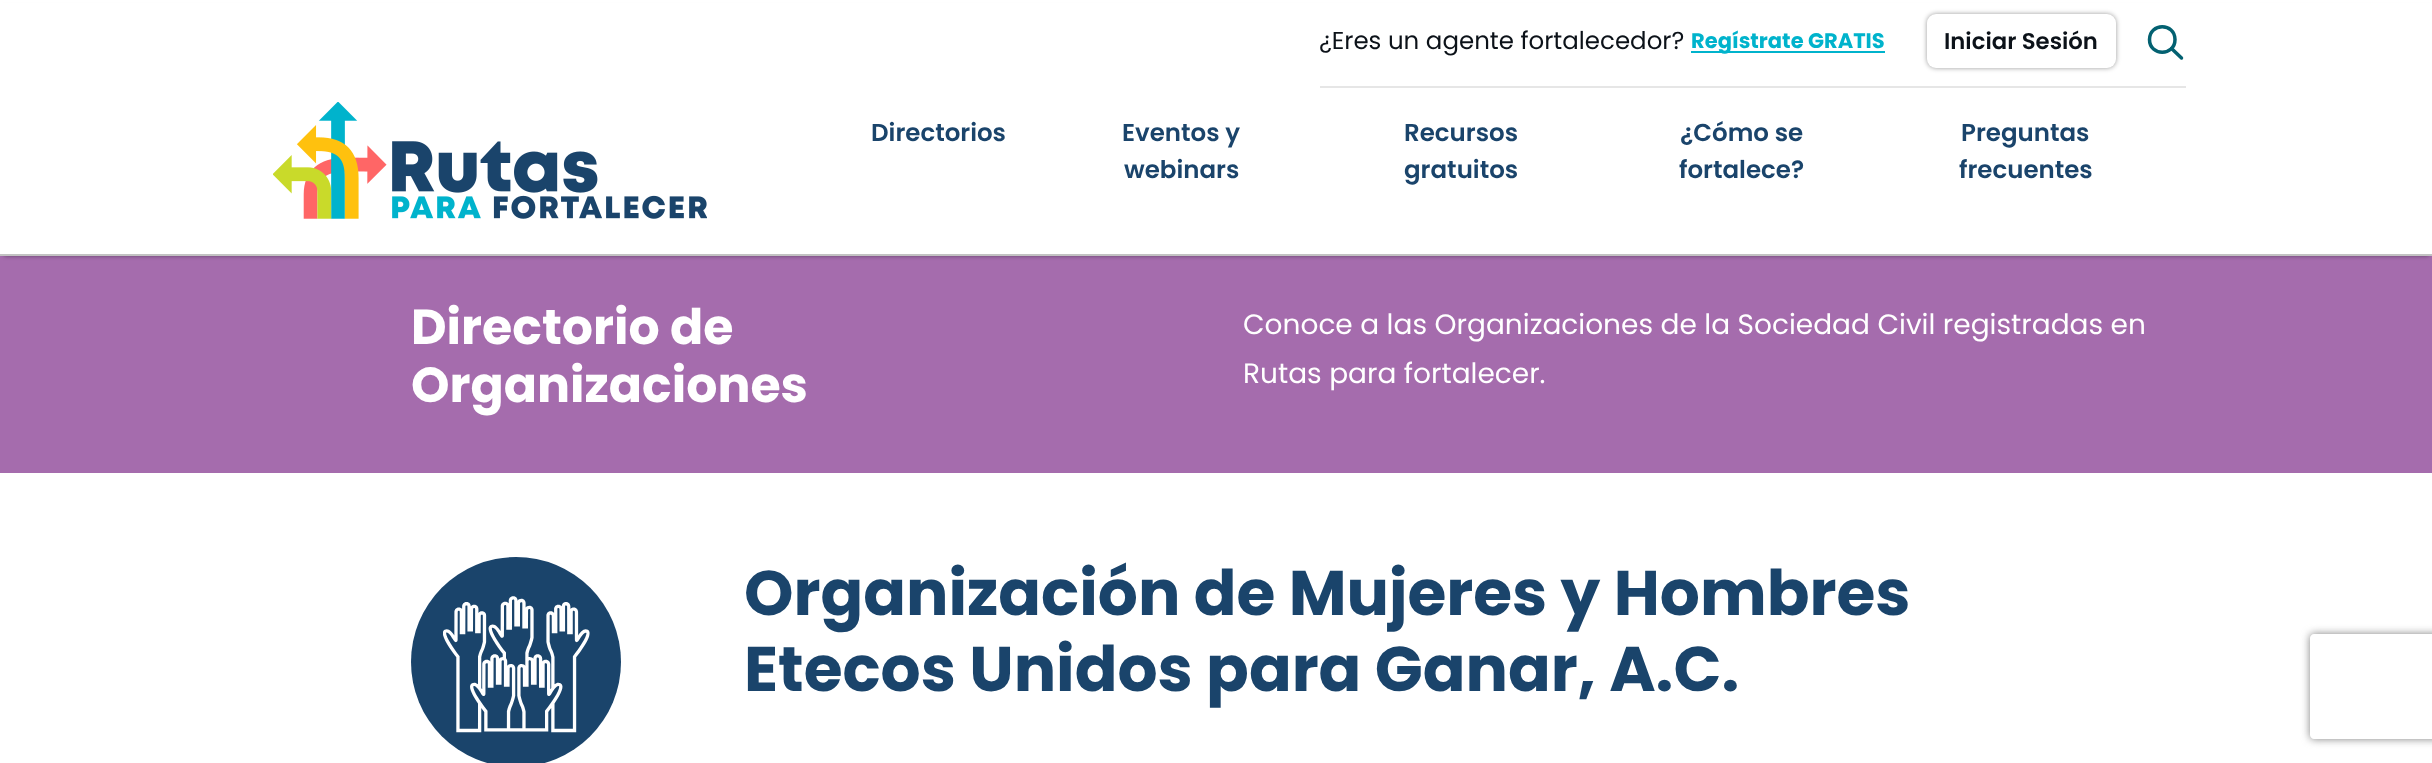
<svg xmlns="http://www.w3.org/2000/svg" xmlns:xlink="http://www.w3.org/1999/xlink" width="2432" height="763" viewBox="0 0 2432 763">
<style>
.cls-1{font:24.5px Poppins;fill:#0c1219}
.cls-2{font:bold 21px Poppins;fill:#00b3cc}
.cls-3{font:600 22.75px Poppins;fill:#0c1219}
.cls-4{font:600 24.5px Poppins;fill:#1a446b}
.cls-5{font:bold 49px Poppins;fill:#ffffff}
.cls-6{font:28px Poppins;fill:#ffffff}
.cls-7{font:bold 63px Poppins;fill:#1a446b}
</style>
<defs>
<clipPath id="clip1"><path d="M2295 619H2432V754H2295ZM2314 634H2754C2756 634 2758 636 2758 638V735C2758 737 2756 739 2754 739H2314C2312 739 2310 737 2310 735V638C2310 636 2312 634 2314 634Z" clip-rule="evenodd"/></clipPath>
</defs>
<rect width="100%" height="100%" fill="#ffffff"/>
<rect fill="#a56cad" x="0" y="256" width="2432" height="217"/>
<rect fill="#000000" fill-opacity="0.4" filter="blur(2px)" x="4" y="7" width="2425" height="249"/>
<rect fill="#ffffff" x="0" y="3" width="2432" height="251"/>
<rect fill="#c2c2c2" x="0" y="254" width="2432" height="2"/>
<rect fill="#e6e6e6" x="1320" y="86" width="866" height="2"/>
<rect fill="#00b3cc" x="1691" y="51" width="194" height="2"/>
<rect fill="#000000" fill-opacity="0.4" filter="blur(2.5px)" x="1927" y="14" width="189" height="54" rx="9"/>
<rect fill="#ffffff" x="1927" y="14" width="189" height="54" rx="9"/>
<path fill="none" stroke="#036171" stroke-width="3.5" d="M2149.5 39.5C2149.5 22.5 2175 22.5 2175 39.5C2175 56.5 2149.5 56.5 2149.5 39.5Z"/>
<path fill="none" stroke="#036171" stroke-width="3.5" stroke-linecap="round" d="M2171.5 48.5L2181.5 58"/>
<image xlink:href="image0.png" x="273" y="102" width="434" height="117"/>
<circle fill="#1a446b" cx="516" cy="662" r="105"/>
<image xlink:href="image1.png" x="443" y="596" width="147" height="137"/>
<g clip-path="url(#clip1)">
<rect fill="#808080" filter="blur(4.5px)" x="2310" y="634" width="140" height="105" rx="4"/>
</g>
<text class="cls-1" x="1319" y="49">¿Eres un agente fortalecedor?</text>
<text class="cls-2" x="1691" y="48">Regístrate GRATIS</text>
<text class="cls-3" x="1944" y="49">Iniciar Sesión</text>
<text class="cls-4" x="871" y="141">Directorios</text>
<text class="cls-4" x="1122" y="141">Eventos y</text>
<text class="cls-4" x="1124" y="178">webinars</text>
<text class="cls-4"><tspan x="1404" y="141">Recursos</tspan><tspan x="1404" y="178">gratuitos</tspan></text>
<text class="cls-4" x="1680" y="141">¿Cómo se</text>
<text class="cls-4" x="1679" y="178">fortalece?</text>
<text class="cls-4" x="1961" y="141">Preguntas</text>
<text class="cls-4" x="1959" y="178">frecuentes</text>
<text class="cls-5"><tspan x="411" y="344">Directorio de</tspan><tspan x="411" y="402">Organizaciones</tspan></text>
<text class="cls-6"><tspan x="1243" y="334">Conoce a las Organizaciones de la Sociedad Civil registradas en</tspan><tspan x="1243" y="383">Rutas para fortalecer.</tspan></text>
<text class="cls-7"><tspan x="744" y="615">Organización de Mujeres y Hombres</tspan><tspan x="744" y="691">Etecos Unidos para Ganar, A.C.</tspan></text>
</svg>
